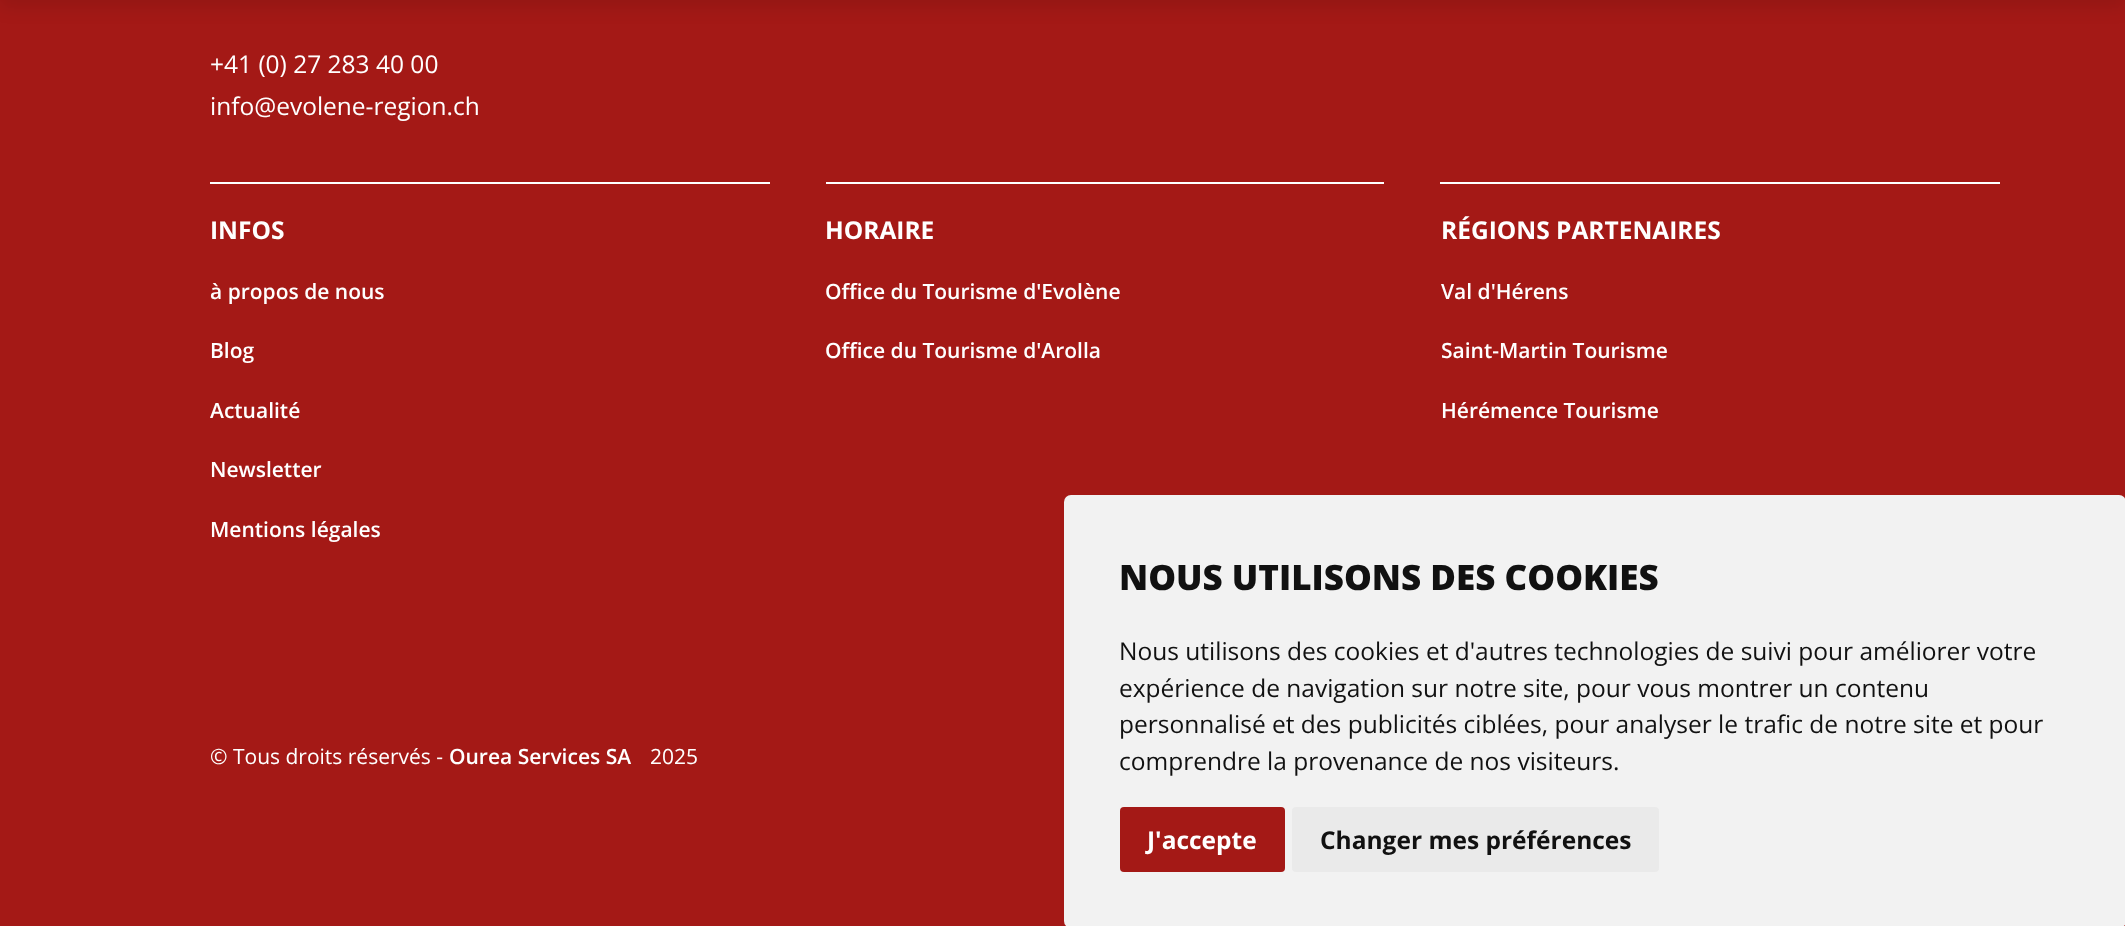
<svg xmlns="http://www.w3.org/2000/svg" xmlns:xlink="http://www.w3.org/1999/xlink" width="2125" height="926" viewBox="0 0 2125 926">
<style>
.cls-1{font:24.5px Open Sans;fill:#ffffff}
.cls-2{font:bold 24.5px Open Sans;fill:#ffffff}
.cls-3{font:600 21px Open Sans;fill:#ffffff}
.cls-4{font:21px Open Sans;fill:#ffffff}
.cls-5{font:800 35px Open Sans;fill:#111111}
.cls-6{font:24.5px Open Sans;fill:#111111}
.cls-7{font:bold 24.5px Open Sans;fill:#111111}
</style>
<rect width="100%" height="100%" fill="#a41916"/>
<rect fill="#000000" fill-opacity="0.1" filter="blur(9px)" x="0" y="-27" width="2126" height="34"/>
<rect fill="#ffffff" x="210" y="182" width="560" height="2"/>
<rect fill="#ffffff" x="826" y="182" width="558" height="2"/>
<rect fill="#ffffff" x="1440" y="182" width="560" height="2"/>
<rect fill="#f2f2f2" x="1064" y="495" width="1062" height="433" rx="7"/>
<rect fill="#a41916" x="1120" y="807" width="165" height="65" rx="4"/>
<rect fill="#eaeaea" x="1292" y="807" width="367" height="65" rx="4"/>
<text class="cls-1"><tspan x="210" y="73">+41 (0) 27 283 40 00</tspan><tspan x="210" y="115">info@evolene-region.ch</tspan></text>
<text class="cls-2" x="210" y="239">INFOS</text>
<text class="cls-3" x="210" y="299">à propos de nous</text>
<text class="cls-3" x="210" y="358">Blog</text>
<text class="cls-3" x="210" y="418">Actualité</text>
<text class="cls-3" x="210" y="477">Newsletter</text>
<text class="cls-3" x="210" y="537">Mentions légales</text>
<text class="cls-2" x="825" y="239">HORAIRE</text>
<text class="cls-3" x="825" y="299">Office du Tourisme d'Evolène</text>
<text class="cls-3" x="825" y="358">Office du Tourisme d'Arolla</text>
<text class="cls-2" x="1441" y="239">RÉGIONS PARTENAIRES</text>
<text class="cls-3" x="1441" y="299">Val d'Hérens</text>
<text class="cls-3" x="1441" y="358">Saint-Martin Tourisme</text>
<text class="cls-3" x="1441" y="418">Hérémence Tourisme</text>
<text class="cls-4" x="210" y="764">© Tous droits réservés -</text>
<text class="cls-3" x="449" y="764">Ourea Services SA</text>
<text class="cls-4" x="650" y="764">2025</text>
<text class="cls-5" x="1119" y="590">NOUS UTILISONS DES COOKIES</text>
<text class="cls-6"><tspan x="1119" y="660">Nous utilisons des cookies et d'autres technologies de suivi pour améliorer votre</tspan><tspan x="1119" y="697">expérience de navigation sur notre site, pour vous montrer un contenu</tspan><tspan x="1119" y="733">personnalisé et des publicités ciblées, pour analyser le trafic de notre site et pour</tspan><tspan x="1119" y="770">comprendre la provenance de nos visiteurs.</tspan></text>
<text class="cls-2" x="1147" y="849">J'accepte</text>
<text class="cls-7" x="1320" y="849">Changer mes préférences</text>
</svg>
